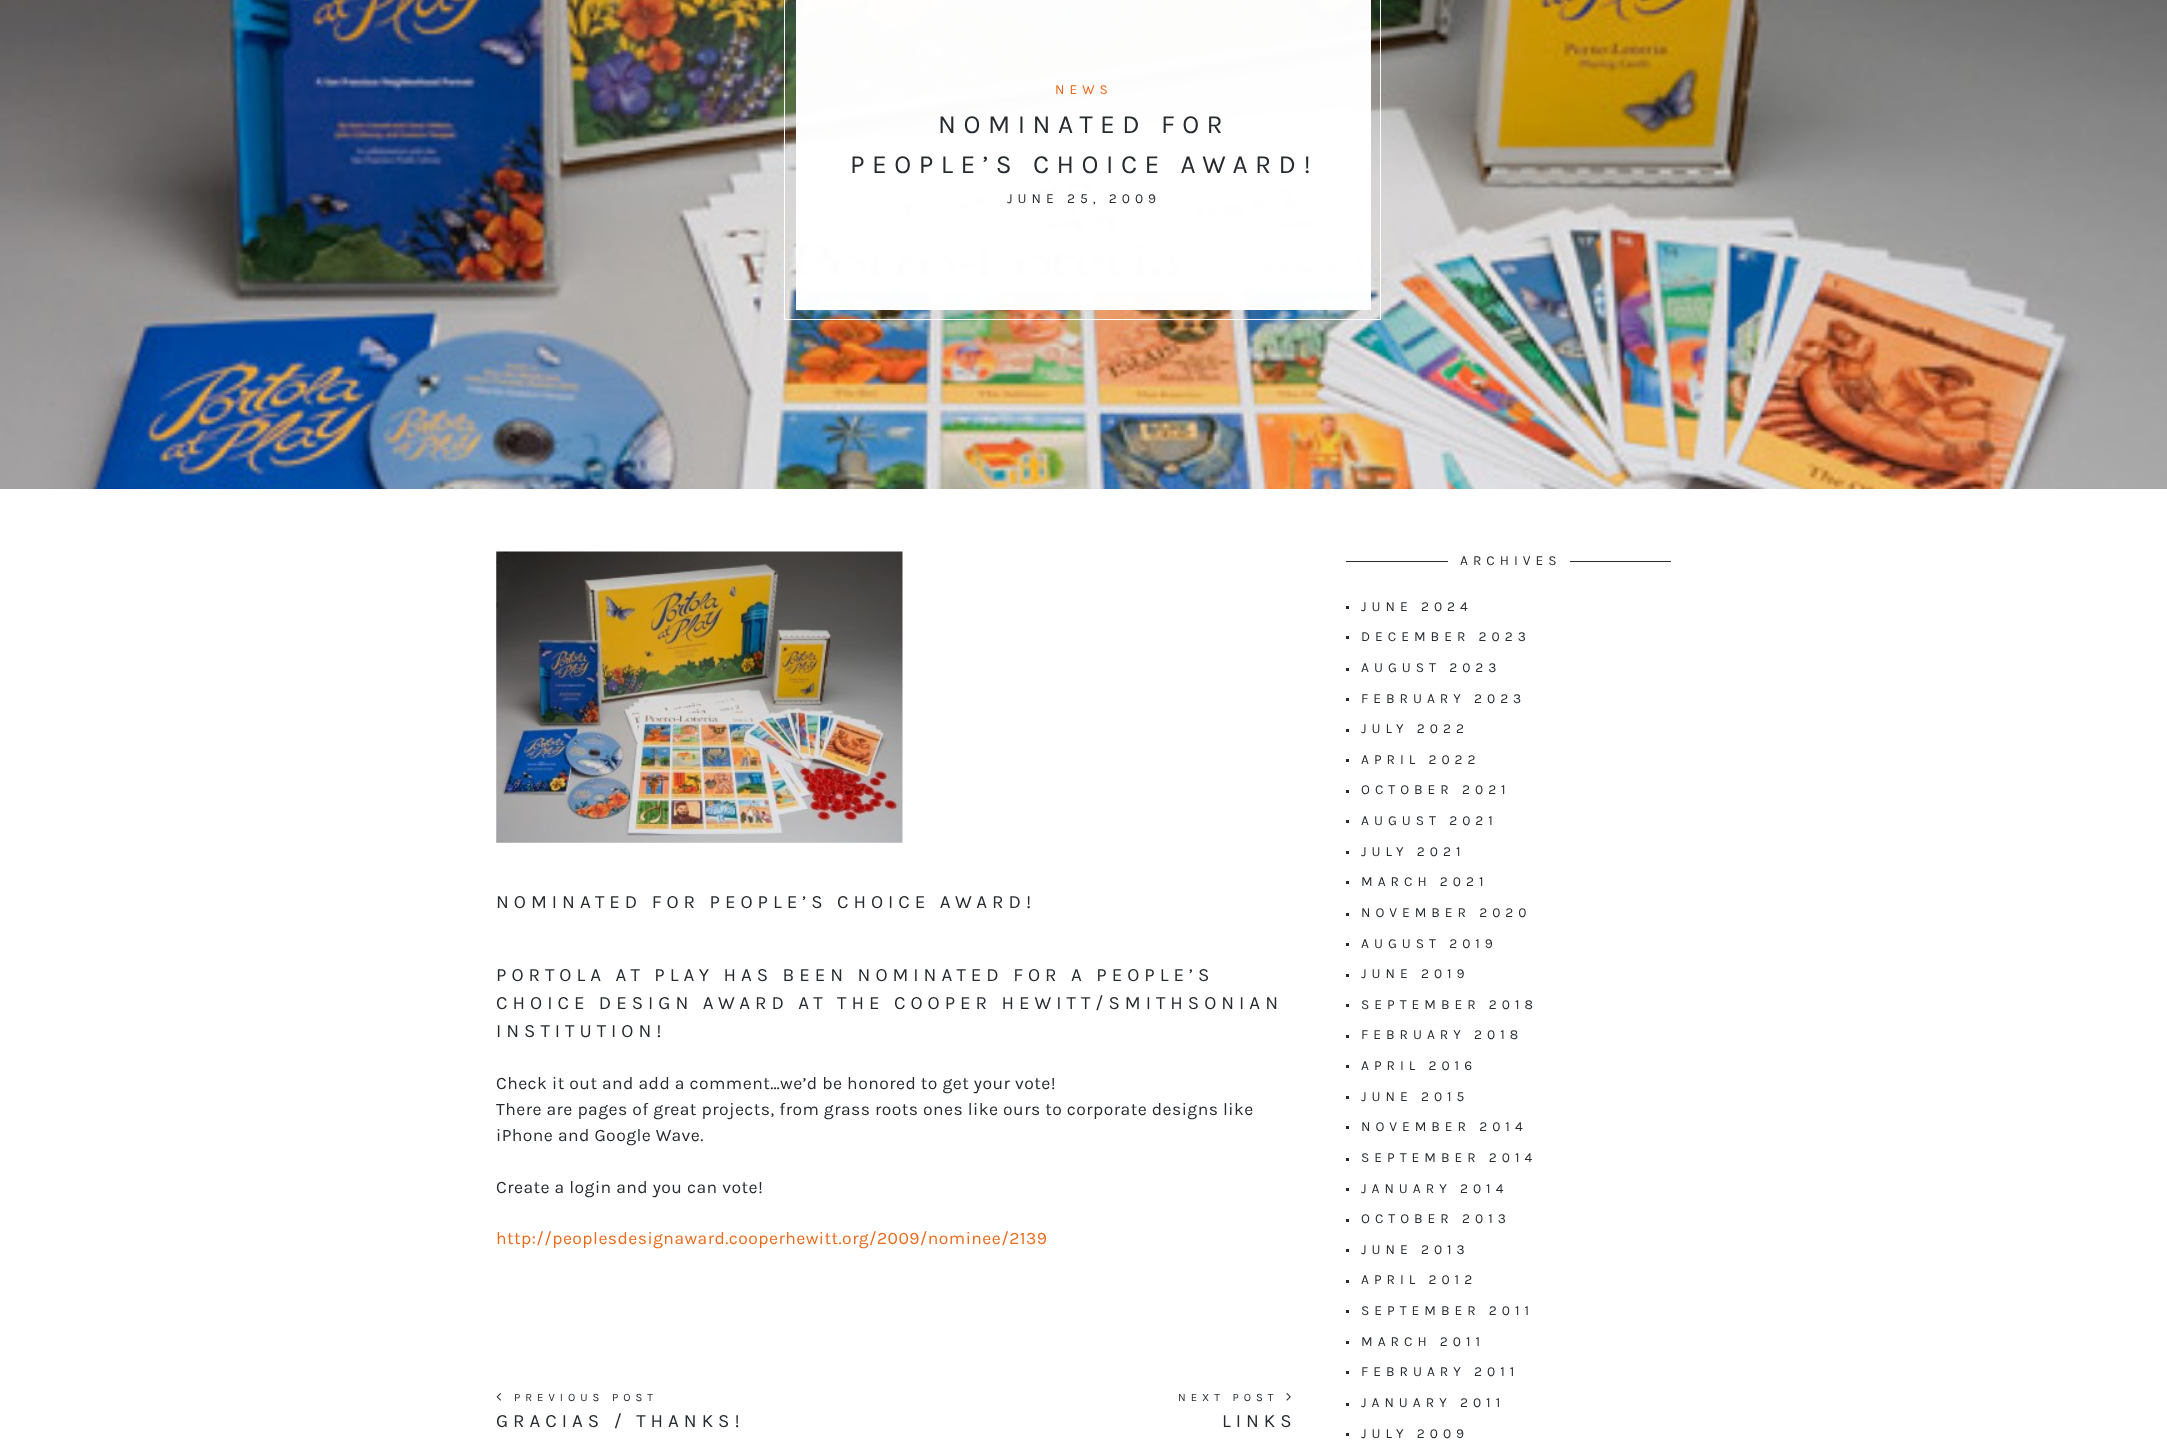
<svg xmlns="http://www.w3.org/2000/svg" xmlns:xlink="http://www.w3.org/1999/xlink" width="2167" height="1449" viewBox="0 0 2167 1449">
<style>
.cls-1{font:13.75px Karla;letter-spacing:5px;fill:#eb6a1c}
.cls-2{font:26.25px Karla;letter-spacing:7.5px;fill:#272b2f}
.cls-3{font:13.75px Karla;letter-spacing:5px;fill:#272b2f}
.cls-4{font:18.75px Karla;letter-spacing:5px;fill:#272b2f}
.cls-5{font:17.5px Karla;letter-spacing:0.45px;fill:#272b2f}
.cls-6{font:17.5px Karla;letter-spacing:0.45px;fill:#eb6a1c}
.cls-7{font:11.25px Karla;letter-spacing:5px;fill:#272b2f}
</style>
<rect width="100%" height="100%" fill="#ffffff"/>
<image xlink:href="image0.png" x="0" y="0" width="2167" height="489"/>
<rect fill="#ffffff" fill-opacity="0.99" x="796" y="0" width="575" height="310"/>
<rect fill="none" stroke="#ffffff" stroke-opacity="0.96" x="784.5" y="-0.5" width="596" height="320"/>
<image xlink:href="image1.png" x="496" y="551" width="407" height="292"/>
<image xlink:href="image2.png" x="496" y="1393" width="5" height="8"/>
<image xlink:href="image3.png" x="1286" y="1393" width="5" height="8"/>
<rect fill="#272b2f" x="1346" y="561" width="325" height="1"/>
<rect fill="#ffffff" x="1448" y="561" width="122" height="1"/>
<rect fill="#272b2f" x="1346" y="606" width="3" height="3"/>
<rect fill="#272b2f" x="1346" y="636" width="3" height="3"/>
<rect fill="#272b2f" x="1346" y="668" width="3" height="3"/>
<rect fill="#272b2f" x="1346" y="698" width="3" height="3"/>
<rect fill="#272b2f" x="1346" y="729" width="3" height="3"/>
<rect fill="#272b2f" x="1346" y="759" width="3" height="3"/>
<rect fill="#272b2f" x="1346" y="790" width="3" height="3"/>
<rect fill="#272b2f" x="1346" y="820" width="3" height="3"/>
<rect fill="#272b2f" x="1346" y="851" width="3" height="3"/>
<rect fill="#272b2f" x="1346" y="881" width="3" height="3"/>
<rect fill="#272b2f" x="1346" y="913" width="3" height="3"/>
<rect fill="#272b2f" x="1346" y="943" width="3" height="3"/>
<rect fill="#272b2f" x="1346" y="974" width="3" height="3"/>
<rect fill="#272b2f" x="1346" y="1004" width="3" height="3"/>
<rect fill="#272b2f" x="1346" y="1035" width="3" height="3"/>
<rect fill="#272b2f" x="1346" y="1065" width="3" height="3"/>
<rect fill="#272b2f" x="1346" y="1096" width="3" height="3"/>
<rect fill="#272b2f" x="1346" y="1126" width="3" height="3"/>
<rect fill="#272b2f" x="1346" y="1158" width="3" height="3"/>
<rect fill="#272b2f" x="1346" y="1188" width="3" height="3"/>
<rect fill="#272b2f" x="1346" y="1219" width="3" height="3"/>
<rect fill="#272b2f" x="1346" y="1249" width="3" height="3"/>
<rect fill="#272b2f" x="1346" y="1280" width="3" height="3"/>
<rect fill="#272b2f" x="1346" y="1310" width="3" height="3"/>
<rect fill="#272b2f" x="1346" y="1341" width="3" height="3"/>
<rect fill="#272b2f" x="1346" y="1371" width="3" height="3"/>
<rect fill="#272b2f" x="1346" y="1403" width="3" height="3"/>
<rect fill="#272b2f" x="1346" y="1433" width="3" height="3"/>
<text class="cls-1" x="1055" y="94">NEWS</text>
<text class="cls-2" x="938" y="133">NOMINATED FOR</text>
<text class="cls-2" x="850" y="173">PEOPLE’S CHOICE AWARD!</text>
<text class="cls-3" x="1007" y="203">JUNE 25, 2009</text>
<text class="cls-4" x="496" y="908">NOMINATED FOR PEOPLE’S CHOICE AWARD!</text>
<text class="cls-4"><tspan x="496" y="981">PORTOLA AT PLAY HAS BEEN NOMINATED FOR A PEOPLE’S</tspan><tspan x="496" y="1009">CHOICE DESIGN AWARD AT THE COOPER HEWITT/SMITHSONIAN</tspan><tspan x="496" y="1037">INSTITUTION!</tspan></text>
<text class="cls-5"><tspan x="496" y="1089">Check it out and add a comment…we’d be honored to get your vote!</tspan><tspan x="496" y="1115">There are pages of great projects, from grass roots ones like ours to corporate designs like</tspan><tspan x="496" y="1141">iPhone and Google Wave.</tspan></text>
<text class="cls-5" x="496" y="1193">Create a login and you can vote!</text>
<text class="cls-6" x="496" y="1244">http://peoplesdesignaward.cooperhewitt.org/2009/nominee/2139</text>
<text class="cls-7" x="514" y="1401">PREVIOUS POST</text>
<text class="cls-4" x="496" y="1427">GRACIAS / THANKS!</text>
<text class="cls-7" x="1178" y="1401">NEXT POST</text>
<text class="cls-4" x="1222" y="1427">LINKS</text>
<text class="cls-3" x="1460" y="565">ARCHIVES</text>
<text class="cls-3" x="1361" y="611">JUNE 2024</text>
<text class="cls-3" x="1361" y="641">DECEMBER 2023</text>
<text class="cls-3" x="1361" y="672">AUGUST 2023</text>
<text class="cls-3" x="1361" y="703">FEBRUARY 2023</text>
<text class="cls-3" x="1361" y="733">JULY 2022</text>
<text class="cls-3" x="1361" y="764">APRIL 2022</text>
<text class="cls-3" x="1361" y="794">OCTOBER 2021</text>
<text class="cls-3" x="1361" y="825">AUGUST 2021</text>
<text class="cls-3" x="1361" y="856">JULY 2021</text>
<text class="cls-3" x="1361" y="886">MARCH 2021</text>
<text class="cls-3" x="1361" y="917">NOVEMBER 2020</text>
<text class="cls-3" x="1361" y="948">AUGUST 2019</text>
<text class="cls-3" x="1361" y="978">JUNE 2019</text>
<text class="cls-3" x="1361" y="1009">SEPTEMBER 2018</text>
<text class="cls-3" x="1361" y="1039">FEBRUARY 2018</text>
<text class="cls-3" x="1361" y="1070">APRIL 2016</text>
<text class="cls-3" x="1361" y="1101">JUNE 2015</text>
<text class="cls-3" x="1361" y="1131">NOVEMBER 2014</text>
<text class="cls-3" x="1361" y="1162">SEPTEMBER 2014</text>
<text class="cls-3" x="1361" y="1193">JANUARY 2014</text>
<text class="cls-3" x="1361" y="1223">OCTOBER 2013</text>
<text class="cls-3" x="1361" y="1254">JUNE 2013</text>
<text class="cls-3" x="1361" y="1284">APRIL 2012</text>
<text class="cls-3" x="1361" y="1315">SEPTEMBER 2011</text>
<text class="cls-3" x="1361" y="1346">MARCH 2011</text>
<text class="cls-3" x="1361" y="1376">FEBRUARY 2011</text>
<text class="cls-3" x="1361" y="1407">JANUARY 2011</text>
<text class="cls-3" x="1361" y="1438">JULY 2009</text>
</svg>
